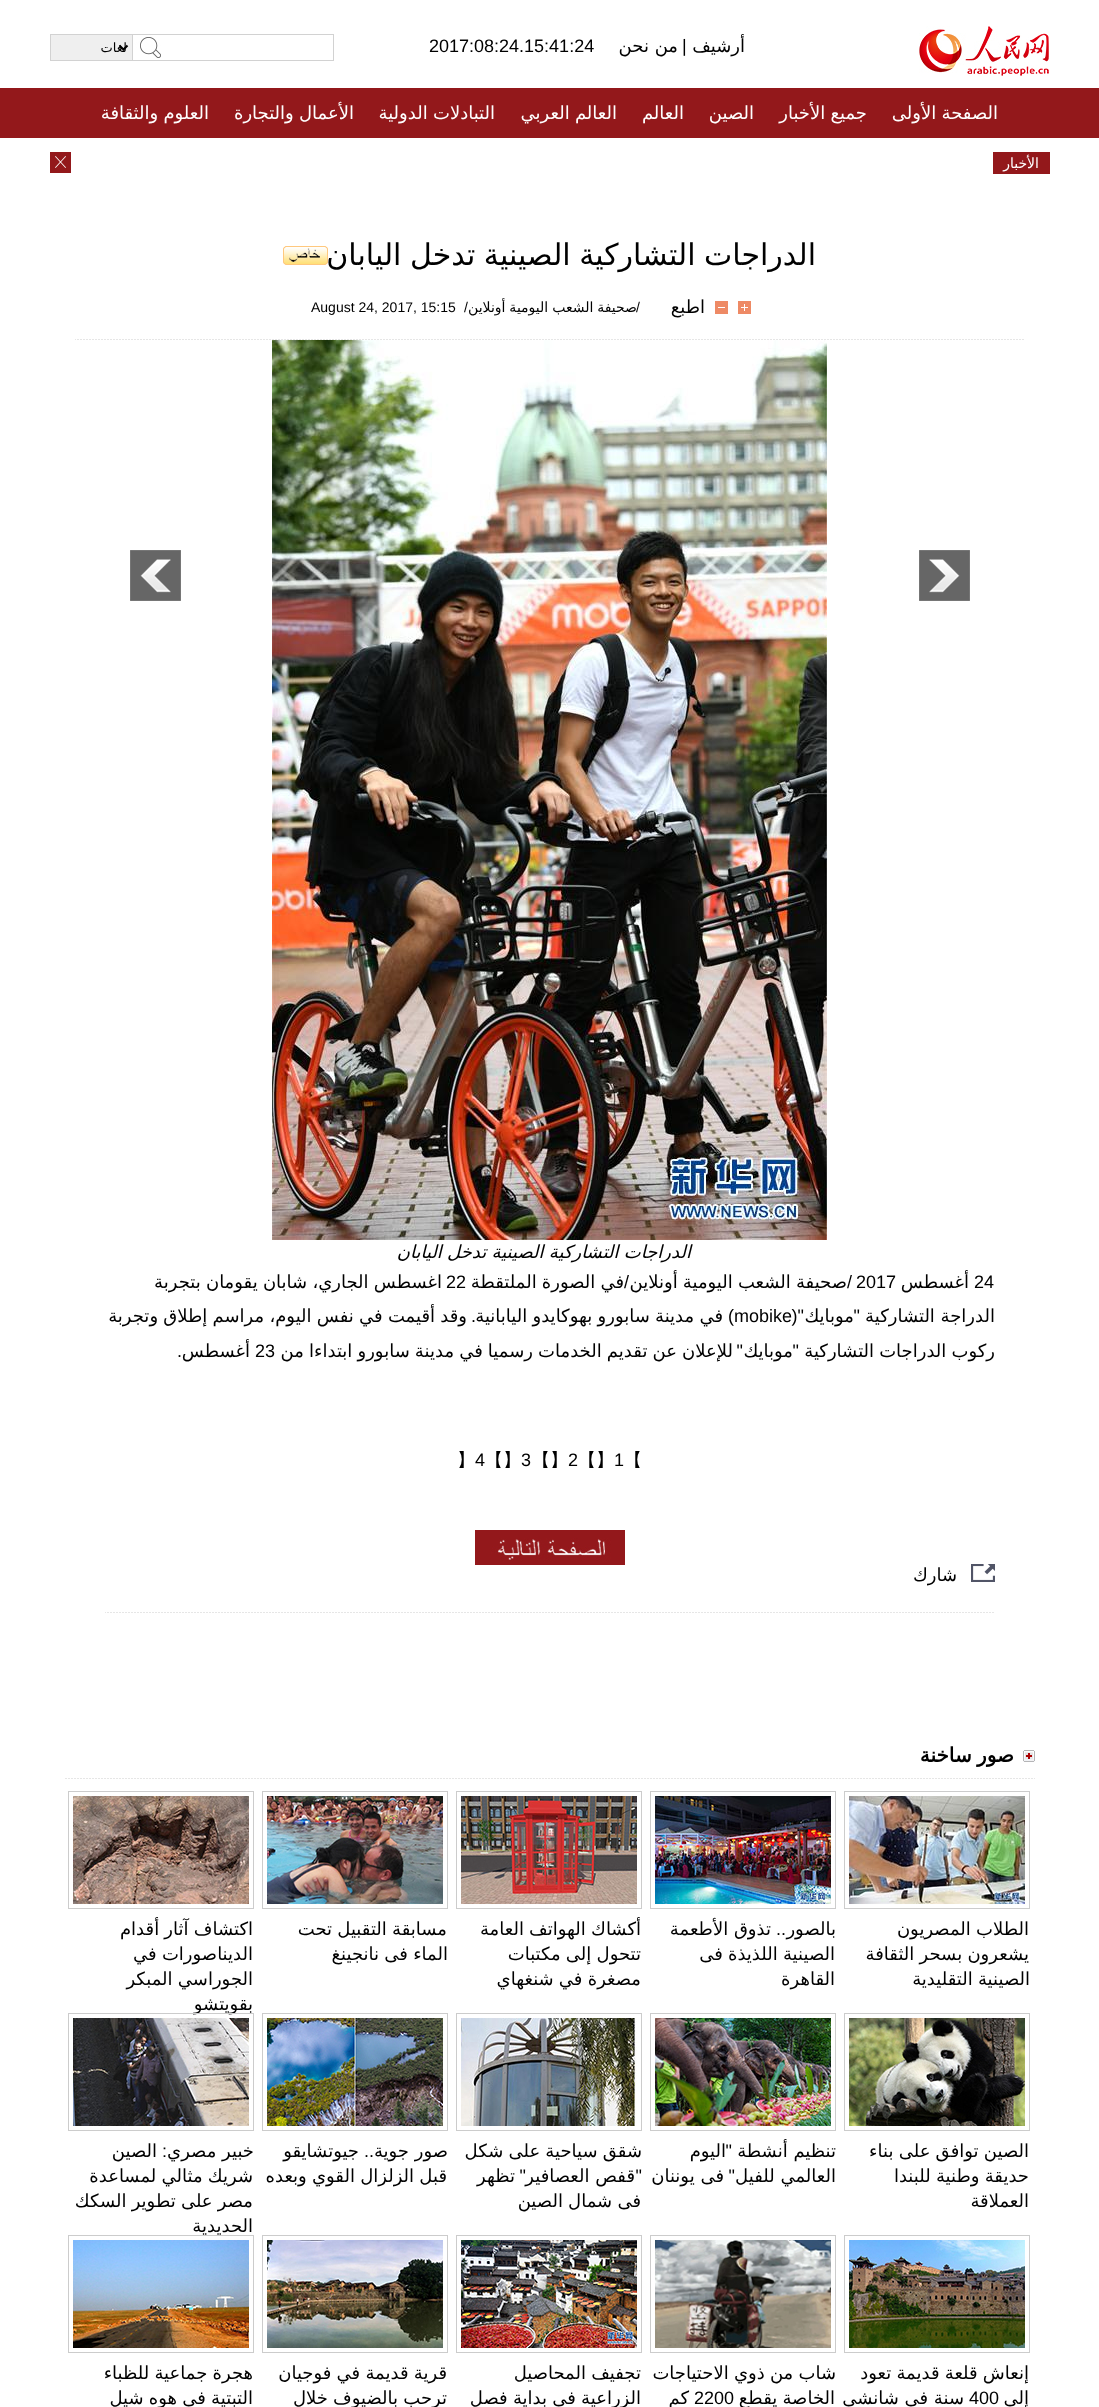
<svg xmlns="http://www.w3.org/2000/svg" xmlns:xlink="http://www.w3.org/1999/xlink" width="1099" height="2407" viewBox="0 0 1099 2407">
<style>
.cls-1{font:18px DejaVu Sans;direction:rtl;fill:#000000}
.cls-2{font:18px Liberation Sans;fill:#000000}
.cls-3{font:13px DejaVu Sans;direction:rtl;fill:#000000}
.cls-4{font:18px DejaVu Sans;direction:rtl;fill:#ffffff}
.cls-5{font:14px DejaVu Sans;direction:rtl;fill:#ffffff}
.cls-6{font:30px DejaVu Sans;direction:rtl;fill:#000000}
.cls-7{font:14px DejaVu Sans;direction:rtl;fill:#000000}
.cls-8{font:14px Liberation Sans;direction:rtl;fill:#000000}
.cls-9{font:14px Liberation Sans;fill:#000000}
.cls-10{font:italic 18px DejaVu Sans;direction:rtl;fill:#000000}
.cls-11{font:18px Liberation Sans;direction:rtl;fill:#000000}
.cls-12{font:500 18px WenQuanYi Zen Hei;fill:#000000}
.cls-13{font:bold 20px DejaVu Sans;direction:rtl;fill:#000000}
</style>
<rect width="100%" height="100%" fill="#ffffff"/>
<image xlink:href="image0.png" x="919" y="26" width="130" height="50"/>
<rect fill="#d2d2d2" x="161" y="34" width="173" height="1"/>
<rect fill="#d2d2d2" x="333" y="34" width="1" height="27"/>
<rect fill="#d2d2d2" x="161" y="60" width="173" height="1"/>
<image xlink:href="image1.png" x="133" y="34" width="28" height="27"/>
<rect fill="#efefef" stroke="#d2d2d2" x="50.5" y="34.5" width="82" height="26"/>
<path fill="none" stroke="#000000" stroke-width="2" d="M119.5 45.5L123.5 49.5L127.5 45.5"/>
<rect fill="#93181b" x="0" y="88" width="1099" height="50"/>
<rect fill="#93181b" x="993" y="152" width="57" height="22"/>
<image xlink:href="image2.png" x="50" y="152" width="21" height="21"/>
<image xlink:href="image3.png" x="283" y="246" width="45" height="19"/>
<image xlink:href="image4.png" x="75" y="339" width="949" height="1"/>
<image xlink:href="image5.png" x="738" y="301" width="13" height="13"/>
<image xlink:href="image6.png" x="715" y="301" width="13" height="13"/>
<image xlink:href="image7.png" x="919" y="550" width="51" height="51"/>
<image xlink:href="image8.png" x="130" y="550" width="51" height="51"/>
<image xlink:href="image9.png" x="272" y="340" width="555" height="900"/>
<image xlink:href="image10.png" x="475" y="1530" width="150" height="35"/>
<image xlink:href="image11.png" x="971" y="1564" width="24" height="18"/>
<image xlink:href="image12.png" x="105" y="1612" width="889" height="1"/>
<image xlink:href="image13.png" x="65" y="1778" width="970" height="1"/>
<image xlink:href="image14.png" x="1023" y="1750" width="12" height="12"/>
<rect fill="none" stroke="#cccccc" x="844.5" y="1791.5" width="185" height="117"/>
<image xlink:href="image15.png" x="849" y="1796" width="176" height="108"/>
<rect fill="none" stroke="#cccccc" x="650.5" y="1791.5" width="185" height="117"/>
<image xlink:href="image16.png" x="655" y="1796" width="176" height="108"/>
<rect fill="none" stroke="#cccccc" x="456.5" y="1791.5" width="185" height="117"/>
<image xlink:href="image17.png" x="461" y="1796" width="176" height="108"/>
<rect fill="none" stroke="#cccccc" x="262.5" y="1791.5" width="185" height="117"/>
<image xlink:href="image18.png" x="267" y="1796" width="176" height="108"/>
<rect fill="none" stroke="#cccccc" x="68.5" y="1791.5" width="185" height="117"/>
<image xlink:href="image19.png" x="73" y="1796" width="176" height="108"/>
<rect fill="none" stroke="#cccccc" x="844.5" y="2013.5" width="185" height="117"/>
<image xlink:href="image20.png" x="849" y="2018" width="176" height="108"/>
<rect fill="none" stroke="#cccccc" x="650.5" y="2013.5" width="185" height="117"/>
<image xlink:href="image21.png" x="655" y="2018" width="176" height="108"/>
<rect fill="none" stroke="#cccccc" x="456.5" y="2013.5" width="185" height="117"/>
<image xlink:href="image22.png" x="461" y="2018" width="176" height="108"/>
<rect fill="none" stroke="#cccccc" x="262.5" y="2013.5" width="185" height="117"/>
<image xlink:href="image23.png" x="267" y="2018" width="176" height="108"/>
<rect fill="none" stroke="#cccccc" x="844.5" y="2235.5" width="185" height="117"/>
<image xlink:href="image25.png" x="849" y="2240" width="176" height="108"/>
<rect fill="none" stroke="#cccccc" x="650.5" y="2235.5" width="185" height="117"/>
<image xlink:href="image26.png" x="655" y="2240" width="176" height="108"/>
<rect fill="none" stroke="#cccccc" x="456.5" y="2235.5" width="185" height="117"/>
<image xlink:href="image27.png" x="461" y="2240" width="176" height="108"/>
<rect fill="none" stroke="#cccccc" x="262.5" y="2235.5" width="185" height="117"/>
<image xlink:href="image28.png" x="267" y="2240" width="176" height="108"/>
<rect fill="none" stroke="#cccccc" x="68.5" y="2235.5" width="185" height="117"/>
<image xlink:href="image29.png" x="73" y="2240" width="176" height="108"/>
<text class="cls-1" x="745" y="52">أرشيف</text>
<text class="cls-2" x="682" y="52">|</text>
<text class="cls-1" x="678" y="52">من نحن</text>
<text class="cls-2" x="429" y="52">2017:08:24.15:41:24</text>
<text class="cls-3" x="127" y="52">لغات</text>
<text class="cls-4" x="998" y="119" word-spacing="-0.5">الصفحة الأولى</text>
<text class="cls-4" x="867" y="119" word-spacing="-0.5">جميع الأخبار</text>
<text class="cls-4" x="754" y="119">الصين</text>
<text class="cls-4" x="684" y="119">العالم</text>
<text class="cls-4" x="617" y="119" word-spacing="-0.5">العالم العربي</text>
<text class="cls-4" x="495" y="119" word-spacing="-0.5">التبادلات الدولية</text>
<text class="cls-4" x="354" y="119" word-spacing="-0.5">الأعمال والتجارة</text>
<text class="cls-4" x="209" y="119" word-spacing="-0.5">العلوم والثقافة</text>
<text class="cls-5" x="1039" y="168">الأخبار</text>
<text class="cls-6" x="816" y="265" word-spacing="-1">الدراجات التشاركية الصينية تدخل اليابان</text>
<text class="cls-1" x="705" y="313">اطبع</text>
<text class="cls-7" x="637" y="312" word-spacing="-0.5">صحيفة الشعب اليومية أونلاين</text>
<text class="cls-8" x="640" y="312">/</text>
<text class="cls-8" x="468" y="312">/</text>
<text class="cls-9" x="311" y="312">August 24, 2017, 15:15</text>
<text class="cls-10" x="691" y="1258" word-spacing="-0.5">الدراجات التشاركية الصينية تدخل اليابان</text>
<text class="cls-2" x="974" y="1288">24</text>
<text class="cls-1" x="969" y="1288">أغسطس</text>
<text class="cls-2" x="856" y="1288">2017</text>
<text class="cls-1" x="847" y="1288" word-spacing="-0.6">صحيفة الشعب اليومية أونلاين</text>
<text class="cls-11" x="852" y="1288">/</text>
<text class="cls-1" x="624" y="1288" word-spacing="-0.6">في الصورة الملتقطة</text>
<text class="cls-11" x="629" y="1288">/</text>
<text class="cls-2" x="446" y="1288">22</text>
<text class="cls-1" x="442" y="1288" word-spacing="-0.5">اغسطس الجاري، شابان يقومان بتجربة</text>
<text class="cls-1" x="995" y="1322">الدراجة التشاركية</text>
<text class="cls-11" x="860" y="1322">"</text>
<text class="cls-1" x="854" y="1322">موبايك</text>
<text class="cls-11" x="804" y="1322">"(</text>
<text class="cls-2" x="734" y="1322">mobike</text>
<text class="cls-11" x="734" y="1322">)</text>
<text class="cls-1" x="723" y="1322" word-spacing="-0.5">في مدينة سابورو بهوكايدو اليابانية</text>
<text class="cls-1" x="467" y="1322" word-spacing="-0.5">وقد أقيمت في نفس اليوم، مراسم إطلاق وتجربة</text>
<text class="cls-11" x="476" y="1322">.</text>
<text class="cls-1" x="995" y="1357" word-spacing="-0.6">ركوب الدراجات التشاركية</text>
<text class="cls-11" x="799" y="1357">"</text>
<text class="cls-1" x="793" y="1357">موبايك</text>
<text class="cls-11" x="743" y="1357">"</text>
<text class="cls-1" x="733" y="1357" word-spacing="-0.6">للإعلان عن تقديم الخدمات رسميا في مدينة سابورو ابتداءا من</text>
<text class="cls-2" x="255" y="1357">23</text>
<text class="cls-1" x="250" y="1357">أغسطس</text>
<text class="cls-11" x="182" y="1357">.</text>
<text class="cls-12" x="624" y="1466">【</text>
<text class="cls-2" x="614" y="1466">1</text>
<text class="cls-12" x="596" y="1466">】</text>
<text class="cls-12" x="578" y="1466">【</text>
<text class="cls-2" x="568" y="1466">2</text>
<text class="cls-12" x="550" y="1466">】</text>
<text class="cls-12" x="532" y="1466">【</text>
<text class="cls-2" x="521" y="1466">3</text>
<text class="cls-12" x="503" y="1466">】</text>
<text class="cls-12" x="485" y="1466">【</text>
<text class="cls-2" x="475" y="1466">4</text>
<text class="cls-12" x="457" y="1466">】</text>
<text class="cls-1" x="957" y="1581">شارك</text>
<text class="cls-13" x="1014" y="1762" word-spacing="-1">صور ساخنة</text>
<text class="cls-1"><tspan x="1029" y="1935" word-spacing="-0.5">الطلاب المصريون</tspan><tspan x="1029" y="1960" word-spacing="-0.5">يشعرون بسحر الثقافة</tspan></text>
<text class="cls-1" x="1030" y="1985" word-spacing="-0.5">الصينية التقليدية</text>
<text class="cls-1" x="836" y="1935">بالصور</text>
<text class="cls-11" x="786" y="1935">..</text>
<text class="cls-1" x="771" y="1935">تذوق الأطعمة</text>
<text class="cls-1"><tspan x="835" y="1960" word-spacing="-0.5">الصينية اللذيذة فى</tspan><tspan x="835" y="1985">القاهرة</tspan></text>
<text class="cls-1"><tspan x="641" y="1935" word-spacing="-0.5">أكشاك الهواتف العامة</tspan><tspan x="641" y="1960" word-spacing="-0.5">تتحول إلى مكتبات</tspan><tspan x="641" y="1985" word-spacing="-0.5">مصغرة في شنغهاي</tspan></text>
<text class="cls-1" x="447" y="1935" word-spacing="-0.5">مسابقة التقبيل تحت</text>
<text class="cls-1" x="448" y="1960" word-spacing="-0.5">الماء فى نانجينغ</text>
<text class="cls-1"><tspan x="253" y="1935" word-spacing="-0.5">اكتشاف آثار أقدام</tspan><tspan x="253" y="1960" word-spacing="-0.5">الديناصورات في</tspan><tspan x="253" y="1985" word-spacing="-0.5">الجوراسي المبكر</tspan><tspan x="253" y="2010">بقويتشو</tspan></text>
<text class="cls-1"><tspan x="1029" y="2157" word-spacing="-0.5">الصين توافق على بناء</tspan><tspan x="1029" y="2182" word-spacing="-0.5">حديقة وطنية للبندا</tspan><tspan x="1029" y="2207">العملاقة</tspan></text>
<text class="cls-1" x="836" y="2157">تنظيم أنشطة</text>
<text class="cls-11" x="732" y="2157">"</text>
<text class="cls-1" x="726" y="2157">اليوم</text>
<text class="cls-1" x="836" y="2182">العالمي للفيل</text>
<text class="cls-11" x="735" y="2182">"</text>
<text class="cls-1" x="724" y="2182">فى يوننان</text>
<text class="cls-1" x="642" y="2157" word-spacing="-0.5">شقق سياحية على شكل</text>
<text class="cls-11" x="642" y="2182">"</text>
<text class="cls-1" x="635" y="2182">قفص العصافير</text>
<text class="cls-11" x="526" y="2182">"</text>
<text class="cls-1" x="515" y="2182">تظهر</text>
<text class="cls-1" x="641" y="2207" word-spacing="-0.5">فى شمال الصين</text>
<text class="cls-1" x="448" y="2157">صور جوية</text>
<text class="cls-11" x="374" y="2157">..</text>
<text class="cls-1" x="359" y="2157">جيوتشايقو</text>
<text class="cls-1" x="447" y="2182" word-spacing="-0.5">قبل الزلزال القوي وبعده</text>
<rect fill="none" stroke="#cccccc" x="68.5" y="2013.5" width="185" height="117"/>
<image xlink:href="image24.png" x="73" y="2018" width="176" height="108"/>
<text class="cls-1" x="254" y="2157">خبير مصري</text>
<text class="cls-11" x="167" y="2157">:</text>
<text class="cls-1" x="157" y="2157">الصين</text>
<text class="cls-1"><tspan x="253" y="2182" word-spacing="-0.5">شريك مثالي لمساعدة</tspan><tspan x="253" y="2207" word-spacing="-0.5">مصر على تطوير السكك</tspan><tspan x="253" y="2232">الحديدية</tspan></text>
<text class="cls-1"><tspan x="1029" y="2379" word-spacing="-0.5">إنعاش قلعة قديمة تعود</tspan><tspan x="1029" y="2404">إلى</tspan></text>
<text class="cls-2" x="969" y="2404">400</text>
<text class="cls-1" x="964" y="2404">سنة في شانشي</text>
<text class="cls-1" x="836" y="2379" word-spacing="-0.5">شاب من ذوي الاحتياجات</text>
<text class="cls-1" x="835" y="2404" word-spacing="-0.5">الخاصة يقطع</text>
<text class="cls-2" x="694" y="2404">2200</text>
<text class="cls-1" x="689" y="2404">كم</text>
<text class="cls-1"><tspan x="641" y="2379" word-spacing="-0.5">تجفيف المحاصيل</tspan><tspan x="641" y="2404" word-spacing="-0.5">الزراعية في بداية فصل</tspan></text>
<text class="cls-1"><tspan x="447" y="2379" word-spacing="-0.5">قرية قديمة في فوجيان</tspan><tspan x="447" y="2404" word-spacing="-0.5">ترحب بالضيوف خلال</tspan></text>
<text class="cls-1"><tspan x="253" y="2379" word-spacing="-0.5">هجرة جماعية للظباء</tspan><tspan x="253" y="2404" word-spacing="-0.5">التبتية في هوه شيل</tspan></text>
</svg>
